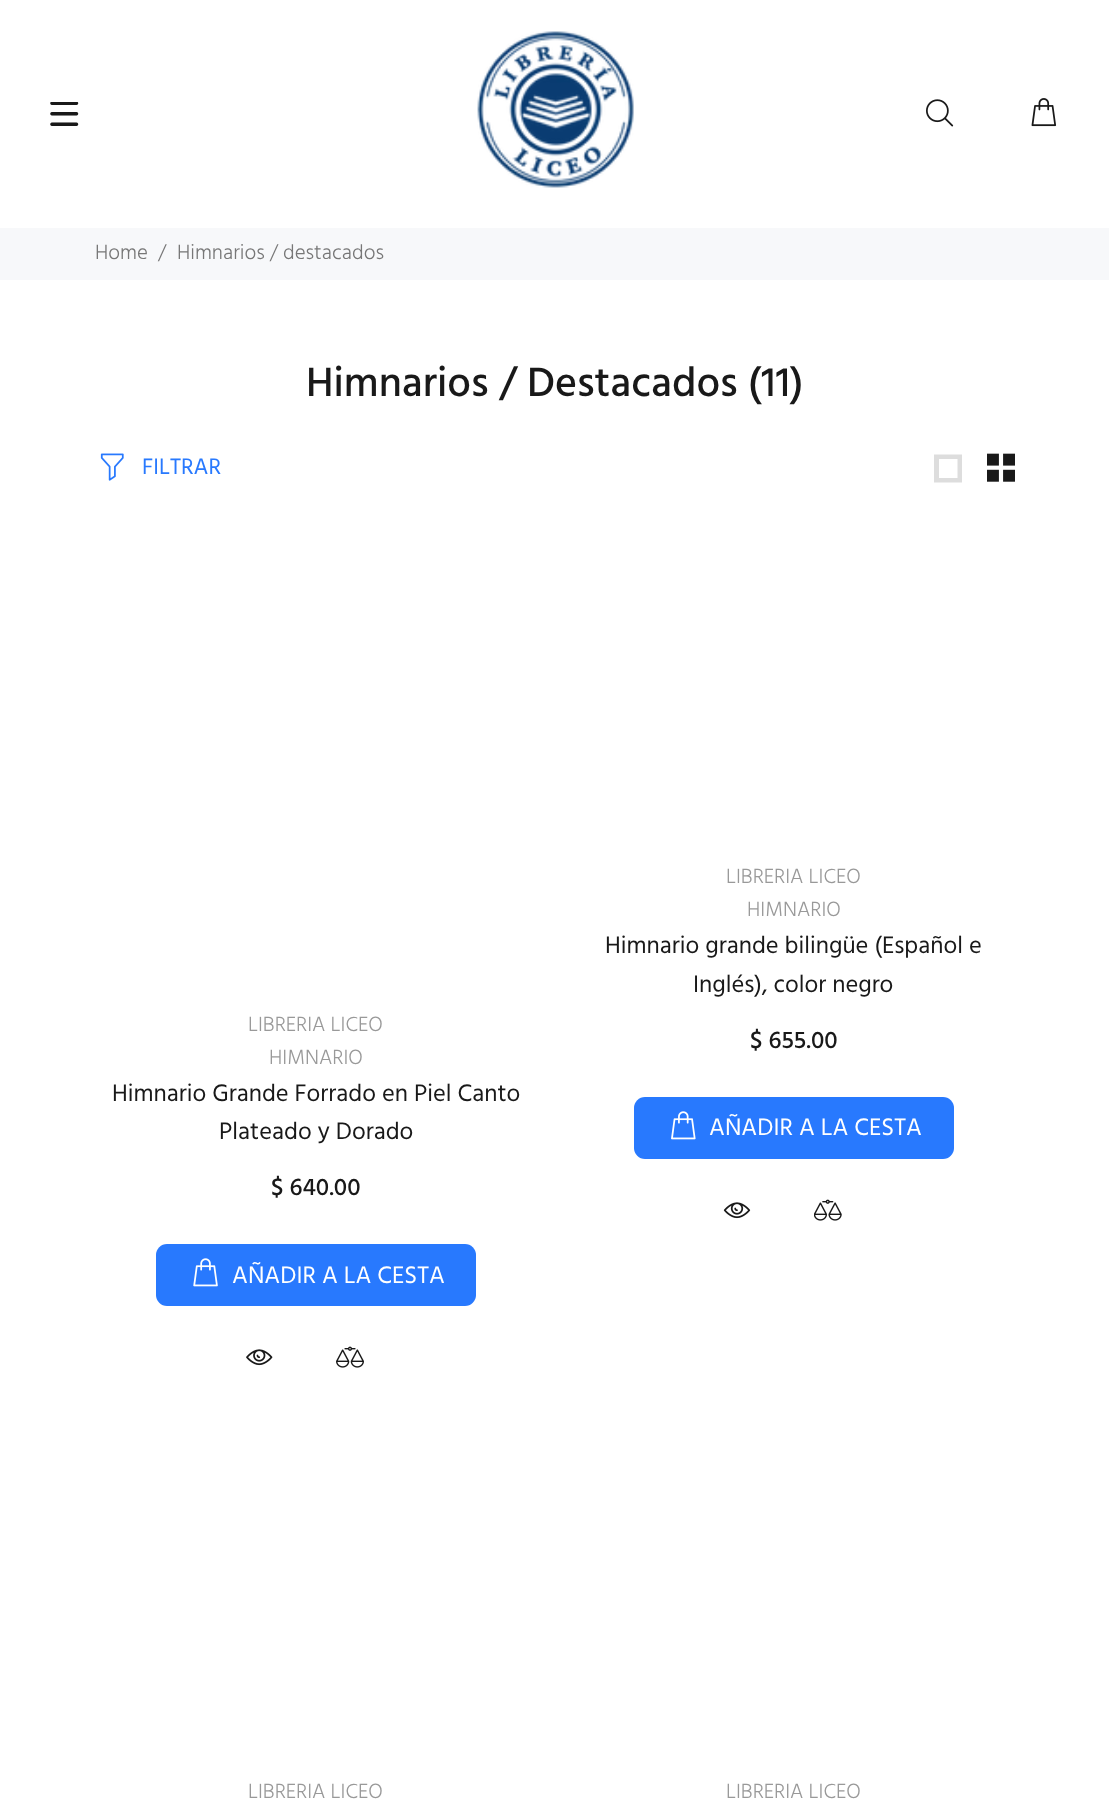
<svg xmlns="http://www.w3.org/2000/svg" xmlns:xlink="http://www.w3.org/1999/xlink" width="1109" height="1810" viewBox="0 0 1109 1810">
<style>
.cls-1{font:300 21px Hind;fill:#777777}
.cls-2{font:500 42px Hind;fill:#191919}
.cls-3{font:23px Hind;fill:#2879fe}
.cls-4{font:300 21px Hind;fill:#999999}
.cls-5{font:24.5px Hind;fill:#191919}
.cls-6{font:500 24.5px Hind;fill:#191919}
.cls-7{font:24.5px Hind;fill:#ffffff}
</style>
<rect width="100%" height="100%" fill="#ffffff"/>
<image xlink:href="image0.png" x="50" y="102" width="29" height="24"/>
<image xlink:href="image1.png" x="477" y="31" width="157" height="157"/>
<image xlink:href="image2.png" x="926" y="99" width="28" height="28"/>
<image xlink:href="image3.png" x="1031" y="98" width="26" height="29"/>
<rect fill="#f7f8fa" x="0" y="228" width="1109" height="52"/>
<image xlink:href="image4.png" x="100" y="453" width="24" height="28"/>
<path fill="#dddddd" d="M934 482.5V454.5H962V482.5ZM939 478H957.5V459H939Z"/>
<image xlink:href="image5.png" x="987" y="453" width="28" height="29"/>
<rect fill="#2879fe" x="156" y="1244" width="320" height="62" rx="11"/>
<image xlink:href="image6.png" x="193" y="1258" width="25" height="29"/>
<image xlink:href="image7.png" x="246" y="1349" width="27" height="17"/>
<image xlink:href="image8.png" x="336" y="1346" width="28" height="22"/>
<rect fill="#2879fe" x="634" y="1097" width="320" height="62" rx="11"/>
<image xlink:href="image9.png" x="671" y="1111" width="25" height="29"/>
<image xlink:href="image10.png" x="723" y="1202" width="28" height="17"/>
<image xlink:href="image11.png" x="814" y="1199" width="28" height="22"/>
<text class="cls-1" x="95" y="259">Home</text>
<text class="cls-1" x="158" y="259">/</text>
<text class="cls-1" x="177" y="259">Himnarios / destacados</text>
<text class="cls-2" x="306" y="396">Himnarios / Destacados (11)</text>
<text class="cls-3" x="142" y="474">FILTRAR</text>
<text class="cls-4" x="248" y="1031">LIBRERIA LICEO</text>
<text class="cls-4" x="269" y="1064">HIMNARIO</text>
<text class="cls-5" x="112" y="1101">Himnario Grande Forrado en Piel Canto</text>
<text class="cls-5" x="219" y="1139">Plateado y Dorado</text>
<text class="cls-6" x="271" y="1195">$ 640.00</text>
<text class="cls-7" x="232" y="1283">AÑADIR A LA CESTA</text>
<text class="cls-4" x="726" y="883">LIBRERIA LICEO</text>
<text class="cls-4" x="747" y="916">HIMNARIO</text>
<text class="cls-5" x="605" y="953">Himnario grande bilingüe (Español e</text>
<text class="cls-5" x="693" y="992">Inglés), color negro</text>
<text class="cls-6" x="750" y="1048">$ 655.00</text>
<text class="cls-7" x="709" y="1135">AÑADIR A LA CESTA</text>
<text class="cls-4" x="248" y="1798">LIBRERIA LICEO</text>
<text class="cls-4" x="726" y="1798">LIBRERIA LICEO</text>
</svg>
